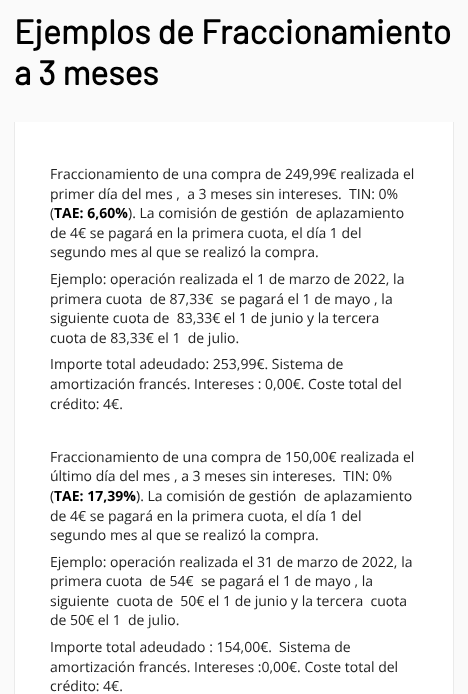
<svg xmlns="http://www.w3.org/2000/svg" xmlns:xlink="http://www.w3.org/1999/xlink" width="468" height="694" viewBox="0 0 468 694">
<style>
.cls-1{font:bold 34px Barlow;fill:#000000}
.cls-2{font:14px Open Sans;fill:#222222}
.cls-3{font:bold 14px Open Sans;fill:#000000}
</style>
<rect width="100%" height="100%" fill="#fafafa"/>
<rect fill="#ffffff" x="15" y="122" width="438" height="572"/>
<rect fill="#eaeaea" x="453" y="122" width="1" height="572"/>
<rect fill="#eaeaea" x="14" y="122" width="1" height="572"/>
<text class="cls-1"><tspan x="14" y="44">Ejemplos de Fraccionamiento</tspan><tspan x="14" y="85">a 3 meses</tspan></text>
<text class="cls-2" xml:space="preserve"><tspan x="50" y="179">Fraccionamiento de una compra de 249,99€ realizada el</tspan><tspan x="50" y="199">primer día del mes ,  a 3 meses sin intereses.  TIN: 0%</tspan><tspan x="50" y="218">(</tspan></text>
<text class="cls-3" x="54" y="218">TAE: 6,60%</text>
<text class="cls-2" xml:space="preserve" x="128" y="218">). La comisión de gestión  de aplazamiento</text>
<text class="cls-2" xml:space="preserve"><tspan x="50" y="238">de 4€ se pagará en la primera cuota, el día 1 del</tspan><tspan x="50" y="257">segundo mes al que se realizó la compra.</tspan><tspan x="50" y="284">Ejemplo: operación realizada el 1 de marzo de 2022, la</tspan><tspan x="50" y="304">primera cuota  de 87,33€  se pagará el 1 de mayo , la</tspan><tspan x="50" y="323">siguiente cuota de  83,33€ el 1 de junio y la tercera</tspan><tspan x="50" y="343">cuota de 83,33€ el 1  de julio.</tspan><tspan x="50" y="369">Importe total adeudado: 253,99€. Sistema de</tspan><tspan x="50" y="389">amortización francés. Intereses : 0,00€. Coste total del</tspan><tspan x="50" y="409">crédito: 4€.</tspan></text>
<text class="cls-2" xml:space="preserve"><tspan x="50" y="462">Fraccionamiento de una compra de 150,00€ realizada el</tspan><tspan x="50" y="481">último día del mes , a 3 meses sin intereses.  TIN: 0%</tspan><tspan x="50" y="501">(</tspan></text>
<text class="cls-3" x="54" y="501">TAE: 17,39%</text>
<text class="cls-2" xml:space="preserve" x="136" y="501">). La comisión de gestión  de aplazamiento</text>
<text class="cls-2" xml:space="preserve"><tspan x="50" y="521">de 4€ se pagará en la primera cuota, el día 1 del</tspan><tspan x="50" y="540">segundo mes al que se realizó la compra.</tspan><tspan x="50" y="567">Ejemplo: operación realizada el 31 de marzo de 2022, la</tspan><tspan x="50" y="586">primera cuota  de 54€  se pagará el 1 de mayo , la</tspan><tspan x="50" y="606">siguiente  cuota de  50€ el 1 de junio y la tercera  cuota</tspan><tspan x="50" y="625">de 50€ el 1  de julio.</tspan><tspan x="50" y="652">Importe total adeudado : 154,00€.  Sistema de</tspan><tspan x="50" y="672">amortización francés. Intereses :0,00€. Coste total del</tspan><tspan x="50" y="691">crédito: 4€.</tspan></text>
</svg>
